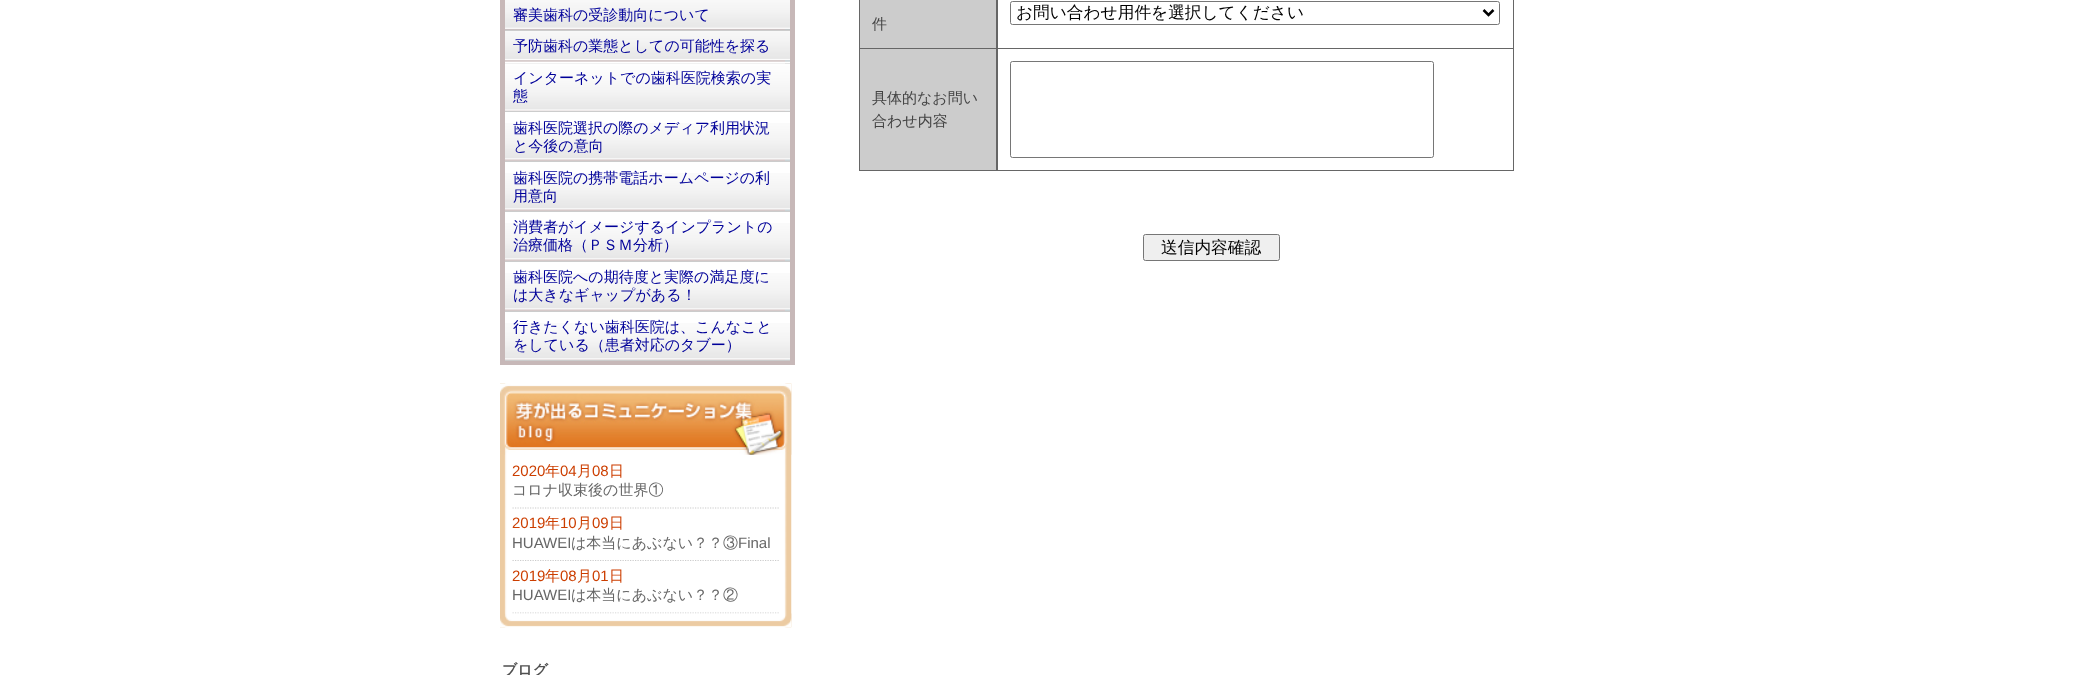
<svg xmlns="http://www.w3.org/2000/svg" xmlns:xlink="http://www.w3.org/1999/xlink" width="2085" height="675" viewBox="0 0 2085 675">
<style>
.cls-1{font:500 15px WenQuanYi Zen Hei;fill:#000099}
.cls-2{font:15px Liberation Sans;fill:#cc3e00}
.cls-3{font:500 15px WenQuanYi Zen Hei;fill:#cc3e00}
.cls-4{font:500 15px WenQuanYi Zen Hei;fill:#666666}
.cls-5{font:15px Liberation Sans;fill:#666666}
.cls-6{font:bold 15px WenQuanYi Zen Hei;fill:#505050}
.cls-7{font:500 16.7px WenQuanYi Zen Hei;fill:#000000}
.cls-8{font:500 15px WenQuanYi Zen Hei;fill:#444444}
</style>
<rect width="100%" height="100%" fill="#ffffff"/>
<rect fill="#c7b8b8" x="500" y="0" width="295" height="365"/>
<image xlink:href="image0.png" x="505" y="0" width="285" height="30"/>
<rect fill="#cccccc" x="505" y="30" width="285" height="1"/>
<image xlink:href="image1.png" x="505" y="0" width="280" height="30"/>
<rect fill="#ffffff" x="505" y="62" width="285" height="1"/>
<image xlink:href="image2.png" x="785" y="31" width="5" height="31"/>
<rect fill="#cccccc" x="505" y="63" width="285" height="1"/>
<image xlink:href="image3.png" x="505" y="31" width="280" height="31"/>
<rect fill="#ffffff" x="505" y="112" width="285" height="201"/>
<image xlink:href="image4.png" x="505" y="63" width="285" height="48"/>
<rect fill="#cccccc" x="505" y="111" width="285" height="1"/>
<image xlink:href="image5.png" x="505" y="63" width="280" height="48"/>
<image xlink:href="image6.png" x="785" y="123" width="5" height="38"/>
<rect fill="#cccccc" x="505" y="161" width="285" height="1"/>
<image xlink:href="image7.png" x="505" y="123" width="280" height="38"/>
<image xlink:href="image6.png" x="785" y="173" width="5" height="38"/>
<rect fill="#cccccc" x="505" y="211" width="285" height="1"/>
<image xlink:href="image7.png" x="505" y="173" width="280" height="38"/>
<image xlink:href="image6.png" x="785" y="223" width="5" height="38"/>
<rect fill="#cccccc" x="505" y="261" width="285" height="1"/>
<image xlink:href="image7.png" x="505" y="223" width="280" height="38"/>
<image xlink:href="image6.png" x="785" y="273" width="5" height="38"/>
<rect fill="#cccccc" x="505" y="311" width="285" height="1"/>
<image xlink:href="image7.png" x="505" y="273" width="280" height="38"/>
<rect fill="#ffffff" x="505" y="313" width="285" height="47"/>
<image xlink:href="image8.png" x="785" y="323" width="5" height="37"/>
<rect fill="#cccccc" x="505" y="360" width="285" height="1"/>
<image xlink:href="image9.png" x="505" y="323" width="280" height="37"/>
<image xlink:href="image10.png" x="500" y="383" width="292" height="245"/>
<image xlink:href="image11.png" x="500" y="383" width="292" height="72"/>
<path fill="none" stroke="#cccccc" stroke-width="1.2" stroke-dasharray="1.25 1.25" d="M512.5 508H779"/>
<path fill="none" stroke="#cccccc" stroke-width="1.2" stroke-dasharray="1.25 1.25" d="M512.5 560.5H779"/>
<path fill="none" stroke="#cccccc" stroke-width="1.2" stroke-dasharray="1.25 1.25" d="M512.5 613H779"/>
<image xlink:href="image12.png" x="500" y="613" width="292" height="15"/>
<rect fill="#666666" x="859" y="0" width="655" height="171"/>
<rect fill="#ffffff" x="998" y="0" width="515" height="48"/>
<rect fill="none" stroke="#767676" x="1010.5" y="1.5" width="489" height="23" rx="2"/>
<path fill="none" stroke="#000000" stroke-width="2.5" d="M1483.5 10L1488.5 15L1493.5 10"/>
<rect fill="#cccccc" x="860" y="0" width="136" height="48"/>
<rect fill="#cccccc" x="860" y="49" width="136" height="121"/>
<rect fill="#ffffff" x="998" y="49" width="515" height="121"/>
<rect fill="none" stroke="#767676" x="1010.5" y="61.5" width="423" height="96" rx="2"/>
<rect fill="#efefef" stroke="#767676" x="1143.5" y="234.5" width="136" height="26" rx="2"/>
<text class="cls-1" x="513" y="20">審美歯科の受診動向について</text>
<text class="cls-1" x="513" y="51">予防歯科の業態としての可能性を探る</text>
<text class="cls-1"><tspan x="513" y="83">インターネットでの歯科医院検索の実</tspan><tspan x="513" y="101">態</tspan></text>
<text class="cls-1"><tspan x="513" y="133">歯科医院選択の際のメディア利用状況</tspan><tspan x="513" y="151">と今後の意向</tspan></text>
<text class="cls-1"><tspan x="513" y="183">歯科医院の携帯電話ホームページの利</tspan><tspan x="513" y="201">用意向</tspan></text>
<text class="cls-1"><tspan x="513" y="232">消費者がイメージするインプラントの</tspan><tspan x="513" y="250">治療価格（ＰＳＭ分析）</tspan></text>
<text class="cls-1"><tspan x="513" y="282">歯科医院への期待度と実際の満足度に</tspan><tspan x="513" y="300">は大きなギャップがある！</tspan></text>
<text class="cls-1"><tspan x="513" y="332">行きたくない歯科医院は、こんなこと</tspan><tspan x="513" y="350">をしている（患者対応のタブー）</tspan></text>
<text class="cls-2" x="512" y="476">2020</text>
<text class="cls-3" x="545" y="476">年</text>
<text class="cls-2" x="560" y="476">04</text>
<text class="cls-3" x="577" y="476">月</text>
<text class="cls-2" x="592" y="476">08</text>
<text class="cls-3" x="609" y="476">日</text>
<text class="cls-4" x="512" y="495">コロナ収束後の世界①</text>
<text class="cls-2" x="512" y="528">2019</text>
<text class="cls-3" x="545" y="528">年</text>
<text class="cls-2" x="560" y="528">10</text>
<text class="cls-3" x="577" y="528">月</text>
<text class="cls-2" x="592" y="528">09</text>
<text class="cls-3" x="609" y="528">日</text>
<text class="cls-5" x="512" y="548">HUAWEI</text>
<text class="cls-4" x="571" y="548">は本当にあぶない？？③</text>
<text class="cls-5" x="738" y="548">Final</text>
<text class="cls-2" x="512" y="581">2019</text>
<text class="cls-3" x="545" y="581">年</text>
<text class="cls-2" x="560" y="581">08</text>
<text class="cls-3" x="577" y="581">月</text>
<text class="cls-2" x="592" y="581">01</text>
<text class="cls-3" x="609" y="581">日</text>
<text class="cls-5" x="512" y="600">HUAWEI</text>
<text class="cls-4" x="571" y="600">は本当にあぶない？？②</text>
<text class="cls-6" x="502" y="675">ブログ</text>
<text class="cls-7" x="1016" y="18">お問い合わせ用件を選択してください</text>
<text class="cls-8" x="872" y="29">件</text>
<text class="cls-8"><tspan x="872" y="103">具体的なお問い</tspan><tspan x="872" y="126">合わせ内容</tspan></text>
<text class="cls-7" x="1161" y="253">送信内容確認</text>
</svg>
